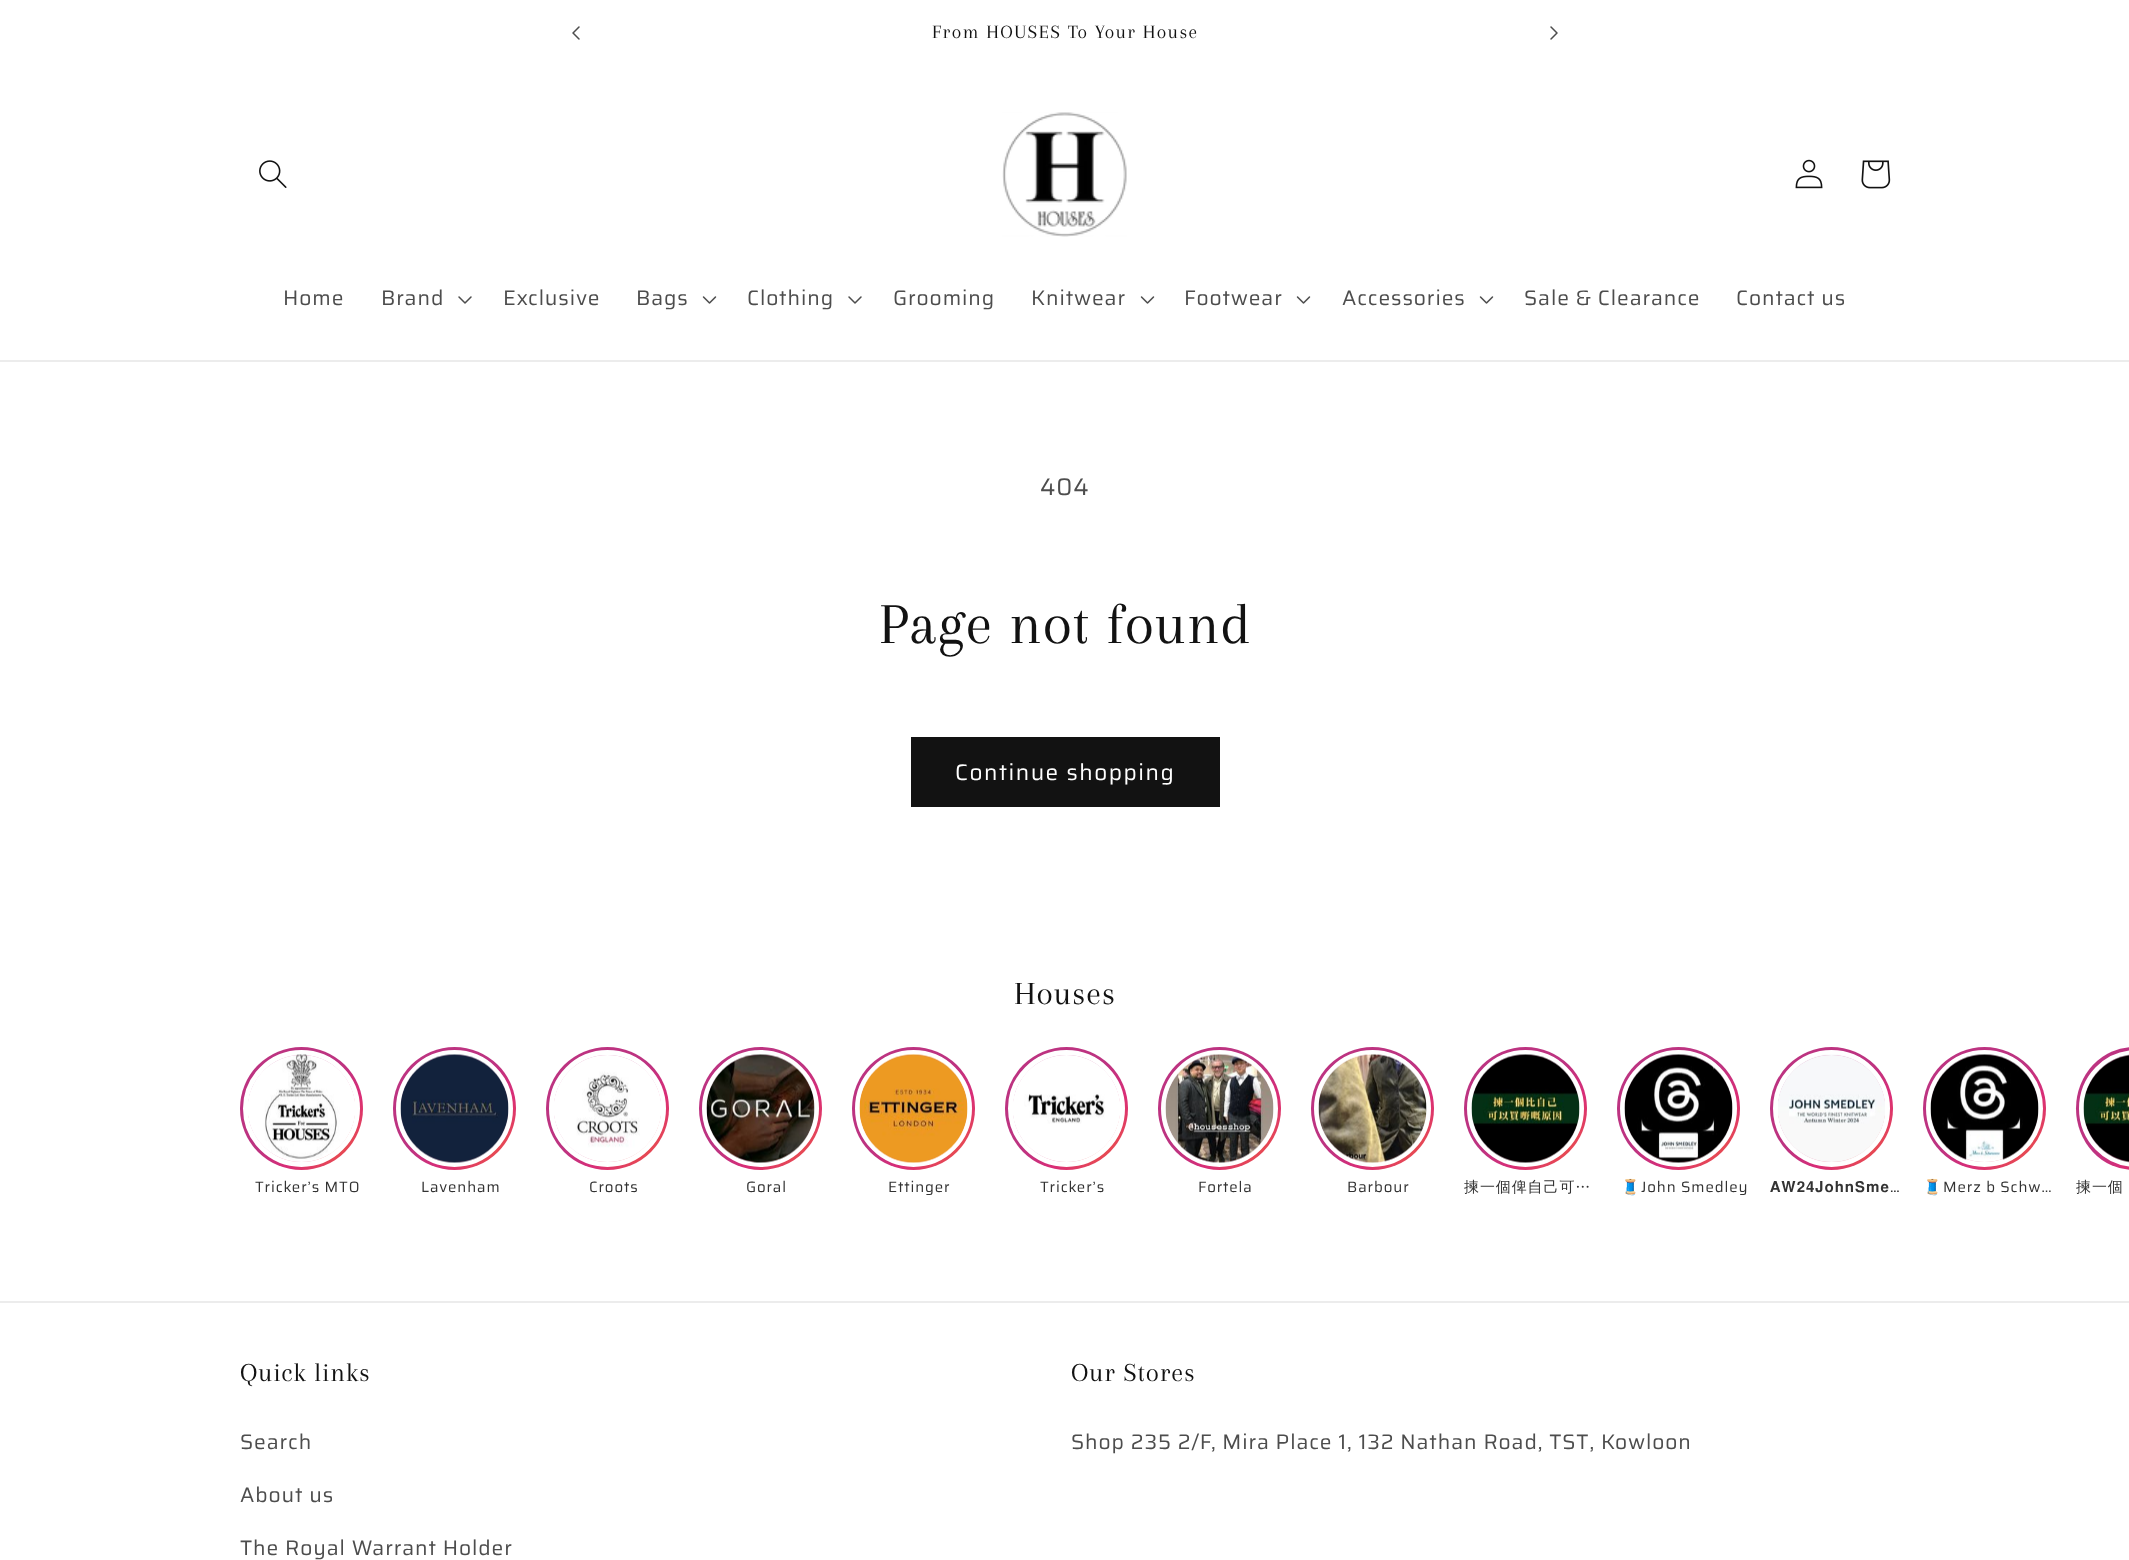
<svg xmlns="http://www.w3.org/2000/svg" xmlns:xlink="http://www.w3.org/1999/xlink" width="2129" height="1560" viewBox="0 0 2129 1560">
<style>
.cls-1{font:19.5px Arapey;letter-spacing:1.5px;fill:#121212}
.cls-2{font:21px Saira;letter-spacing:0.9px;fill:#4d4d4d}
.cls-3{font:24px Saira;letter-spacing:0.9px;fill:#4d4d4d}
.cls-4{font:60px Arapey;letter-spacing:0.9px;fill:#121212}
.cls-5{font:22.5px Saira;letter-spacing:1.5px;fill:#ffffff}
.cls-6{font:33.5px Arapey;letter-spacing:0.9px;fill:#121212}
.cls-7{font:15px Saira;letter-spacing:0.9px;fill:#333333}
.cls-8{font:500 15px WenQuanYi Zen Hei;letter-spacing:0.9px;fill:#333333}
.cls-9{font:15px Noto Color Emoji;letter-spacing:0.9px;fill:#333333}
.cls-10{font:15px FreeSans;letter-spacing:0.9px;fill:#333333}
.cls-11{font:27px Arapey;letter-spacing:0.9px;fill:#121212}
</style>
<defs>
<radialGradient id="g1" gradientUnits="userSpaceOnUse" cx="326" cy="1133" r="122"><stop offset="0.08" stop-color="#ee583f"/><stop offset="0.42" stop-color="#d92d77"/><stop offset="0.58" stop-color="#bd3381"/></radialGradient>
<radialGradient id="g2" gradientUnits="userSpaceOnUse" cx="479" cy="1133" r="122"><stop offset="0.08" stop-color="#ee583f"/><stop offset="0.42" stop-color="#d92d77"/><stop offset="0.58" stop-color="#bd3381"/></radialGradient>
<radialGradient id="g3" gradientUnits="userSpaceOnUse" cx="632" cy="1133" r="122"><stop offset="0.08" stop-color="#ee583f"/><stop offset="0.42" stop-color="#d92d77"/><stop offset="0.58" stop-color="#bd3381"/></radialGradient>
<radialGradient id="g4" gradientUnits="userSpaceOnUse" cx="785" cy="1133" r="122"><stop offset="0.08" stop-color="#ee583f"/><stop offset="0.42" stop-color="#d92d77"/><stop offset="0.58" stop-color="#bd3381"/></radialGradient>
<radialGradient id="g5" gradientUnits="userSpaceOnUse" cx="938" cy="1133" r="122"><stop offset="0.08" stop-color="#ee583f"/><stop offset="0.42" stop-color="#d92d77"/><stop offset="0.58" stop-color="#bd3381"/></radialGradient>
<radialGradient id="g6" gradientUnits="userSpaceOnUse" cx="1091" cy="1133" r="122"><stop offset="0.08" stop-color="#ee583f"/><stop offset="0.42" stop-color="#d92d77"/><stop offset="0.58" stop-color="#bd3381"/></radialGradient>
<radialGradient id="g7" gradientUnits="userSpaceOnUse" cx="1244" cy="1133" r="122"><stop offset="0.08" stop-color="#ee583f"/><stop offset="0.42" stop-color="#d92d77"/><stop offset="0.58" stop-color="#bd3381"/></radialGradient>
<radialGradient id="g8" gradientUnits="userSpaceOnUse" cx="1397" cy="1133" r="122"><stop offset="0.08" stop-color="#ee583f"/><stop offset="0.42" stop-color="#d92d77"/><stop offset="0.58" stop-color="#bd3381"/></radialGradient>
<radialGradient id="g9" gradientUnits="userSpaceOnUse" cx="1550" cy="1133" r="122"><stop offset="0.08" stop-color="#ee583f"/><stop offset="0.42" stop-color="#d92d77"/><stop offset="0.58" stop-color="#bd3381"/></radialGradient>
<radialGradient id="g10" gradientUnits="userSpaceOnUse" cx="1703" cy="1133" r="122"><stop offset="0.08" stop-color="#ee583f"/><stop offset="0.42" stop-color="#d92d77"/><stop offset="0.58" stop-color="#bd3381"/></radialGradient>
<radialGradient id="g11" gradientUnits="userSpaceOnUse" cx="1856" cy="1133" r="122"><stop offset="0.08" stop-color="#ee583f"/><stop offset="0.42" stop-color="#d92d77"/><stop offset="0.58" stop-color="#bd3381"/></radialGradient>
<radialGradient id="g12" gradientUnits="userSpaceOnUse" cx="2009" cy="1133" r="122"><stop offset="0.08" stop-color="#ee583f"/><stop offset="0.42" stop-color="#d92d77"/><stop offset="0.58" stop-color="#bd3381"/></radialGradient>
<radialGradient id="g13" gradientUnits="userSpaceOnUse" cx="2162" cy="1133" r="122"><stop offset="0.08" stop-color="#ee583f"/><stop offset="0.42" stop-color="#d92d77"/><stop offset="0.58" stop-color="#bd3381"/></radialGradient>
</defs>
<rect width="100%" height="100%" fill="#ffffff"/>
<image xlink:href="image0.png" x="572" y="26" width="8" height="14"/>
<image xlink:href="image1.png" x="1550" y="26" width="8" height="14"/>
<rect fill="#ececec" x="0" y="360" width="2129" height="2"/>
<image xlink:href="image2.png" x="259" y="160" width="28" height="28"/>
<image xlink:href="image3.png" x="1002" y="112" width="125" height="125"/>
<image xlink:href="image4.png" x="1795" y="159" width="28" height="30"/>
<image xlink:href="image5.png" x="1861" y="160" width="30" height="29"/>
<image xlink:href="image6.png" x="458" y="296" width="14" height="8"/>
<image xlink:href="image7.png" x="702" y="296" width="15" height="8"/>
<image xlink:href="image6.png" x="848" y="296" width="14" height="8"/>
<image xlink:href="image7.png" x="1140" y="296" width="15" height="8"/>
<image xlink:href="image7.png" x="1296" y="296" width="15" height="8"/>
<image xlink:href="image7.png" x="1479" y="296" width="15" height="8"/>
<rect fill="#121212" x="911" y="737" width="309" height="70"/>
<circle fill="url(#g1)" cx="301.5" cy="1108.5" r="61.5"/>
<circle fill="none" stroke="#ffffff" stroke-width="5" cx="301.5" cy="1108.5" r="56"/>
<image xlink:href="image8.png" x="248" y="1054" width="107" height="108"/>
<circle fill="url(#g2)" cx="454.5" cy="1108.5" r="61.5"/>
<circle fill="none" stroke="#ffffff" stroke-width="5" cx="454.5" cy="1108.5" r="56"/>
<image xlink:href="image9.png" x="400" y="1054" width="109" height="109"/>
<circle fill="url(#g3)" cx="607.5" cy="1108.5" r="61.5"/>
<circle fill="none" stroke="#ffffff" stroke-width="5" cx="607.5" cy="1108.5" r="56"/>
<image xlink:href="image10.png" x="554" y="1055" width="107" height="107"/>
<circle fill="url(#g4)" cx="760.5" cy="1108.5" r="61.5"/>
<circle fill="none" stroke="#ffffff" stroke-width="5" cx="760.5" cy="1108.5" r="56"/>
<image xlink:href="image11.png" x="706" y="1054" width="109" height="109"/>
<circle fill="url(#g5)" cx="913.5" cy="1108.5" r="61.5"/>
<circle fill="none" stroke="#ffffff" stroke-width="5" cx="913.5" cy="1108.5" r="56"/>
<image xlink:href="image12.png" x="859" y="1054" width="109" height="109"/>
<circle fill="url(#g6)" cx="1066.5" cy="1108.5" r="61.5"/>
<circle fill="none" stroke="#ffffff" stroke-width="5" cx="1066.5" cy="1108.5" r="56"/>
<image xlink:href="image13.png" x="1013" y="1055" width="107" height="107"/>
<circle fill="url(#g7)" cx="1219.5" cy="1108.5" r="61.5"/>
<circle fill="none" stroke="#ffffff" stroke-width="5" cx="1219.5" cy="1108.5" r="56"/>
<image xlink:href="image14.png" x="1165" y="1054" width="109" height="109"/>
<circle fill="url(#g8)" cx="1372.5" cy="1108.5" r="61.5"/>
<circle fill="none" stroke="#ffffff" stroke-width="5" cx="1372.5" cy="1108.5" r="56"/>
<image xlink:href="image15.png" x="1318" y="1054" width="109" height="109"/>
<circle fill="url(#g9)" cx="1525.5" cy="1108.5" r="61.5"/>
<circle fill="none" stroke="#ffffff" stroke-width="5" cx="1525.5" cy="1108.5" r="56"/>
<image xlink:href="image16.png" x="1471" y="1054" width="109" height="109"/>
<circle fill="url(#g10)" cx="1678.5" cy="1108.5" r="61.5"/>
<circle fill="none" stroke="#ffffff" stroke-width="5" cx="1678.5" cy="1108.5" r="56"/>
<image xlink:href="image17.png" x="1624" y="1054" width="109" height="109"/>
<circle fill="url(#g11)" cx="1831.5" cy="1108.5" r="61.5"/>
<circle fill="none" stroke="#ffffff" stroke-width="5" cx="1831.5" cy="1108.5" r="56"/>
<image xlink:href="image18.png" x="1778" y="1054" width="107" height="108"/>
<circle fill="url(#g12)" cx="1984.5" cy="1108.5" r="61.5"/>
<circle fill="none" stroke="#ffffff" stroke-width="5" cx="1984.5" cy="1108.5" r="56"/>
<image xlink:href="image19.png" x="1930" y="1054" width="109" height="108"/>
<rect fill="url(#g13)" x="2076" y="1047" width="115" height="123" rx="61.5"/>
<rect fill="none" stroke="#ffffff" stroke-width="5" x="2081.5" y="1052.5" width="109" height="112" rx="56"/>
<image xlink:href="image20.png" x="2083" y="1054" width="46" height="109"/>
<rect fill="#ececec" x="0" y="1301" width="2129" height="2"/>
<text class="cls-1" x="932" y="38">From HOUSES To Your House</text>
<text class="cls-2" x="283" y="305">Home</text>
<text class="cls-2" x="381" y="305">Brand</text>
<text class="cls-2" x="503" y="305">Exclusive</text>
<text class="cls-2" x="636" y="305">Bags</text>
<text class="cls-2" x="747" y="305">Clothing</text>
<text class="cls-2" x="893" y="305">Grooming</text>
<text class="cls-2" x="1031" y="305">Knitwear</text>
<text class="cls-2" x="1184" y="305">Footwear</text>
<text class="cls-2" x="1342" y="305">Accessories</text>
<text class="cls-2" x="1524" y="305">Sale &amp; Clearance</text>
<text class="cls-2" x="1736" y="305">Contact us</text>
<text class="cls-3" x="1040" y="495">404</text>
<text class="cls-4" x="879" y="643">Page not found</text>
<text class="cls-5" x="955" y="780">Continue shopping</text>
<text class="cls-6" x="1014" y="1004">Houses</text>
<text class="cls-7" x="255" y="1192">Tricker’s MTO</text>
<text class="cls-7" x="421" y="1192">Lavenham</text>
<text class="cls-7" x="589" y="1192">Croots</text>
<text class="cls-7" x="746" y="1192">Goral</text>
<text class="cls-7" x="888" y="1192">Ettinger</text>
<text class="cls-7" x="1040" y="1192">Tricker’s</text>
<text class="cls-7" x="1198" y="1192">Fortela</text>
<text class="cls-7" x="1347" y="1192">Barbour</text>
<text class="cls-8" x="1464" y="1192">揀一個俾自己可…</text>
<text class="cls-9" x="1621" y="1192">🧵</text>
<text class="cls-7" x="1641" y="1192">John Smedley</text>
<text class="cls-10" x="1770" y="1192">𝐀𝐖𝟐𝟒𝐉𝐨𝐡𝐧𝐒𝐦𝐞…</text>
<text class="cls-9" x="1923" y="1192">🧵</text>
<text class="cls-7" x="1943" y="1192">Merz b Schw…</text>
<text class="cls-8" x="2076" y="1192">揀一個</text>
<text class="cls-11" x="240" y="1381">Quick links</text>
<text class="cls-2" x="240" y="1449">Search</text>
<text class="cls-2" x="240" y="1502">About us</text>
<text class="cls-2" x="240" y="1555">The Royal Warrant Holder</text>
<text class="cls-11" x="1071" y="1381">Our Stores</text>
<text class="cls-2" x="1071" y="1449">Shop 235 2/F, Mira Place 1, 132 Nathan Road, TST, Kowloon</text>
</svg>
